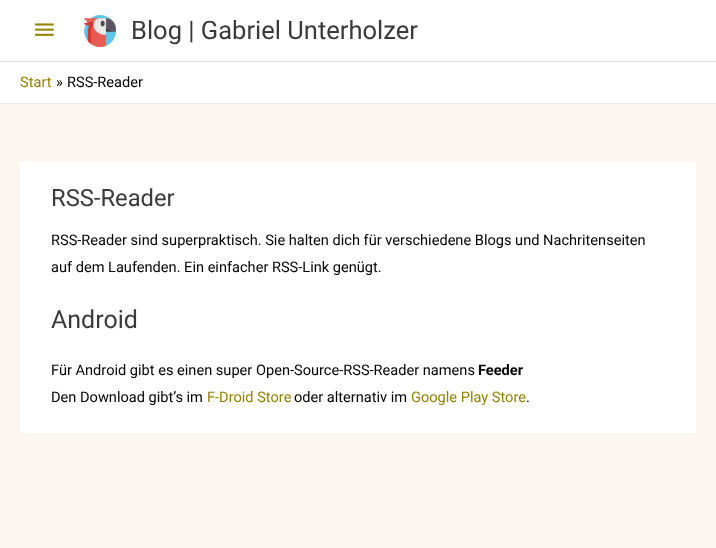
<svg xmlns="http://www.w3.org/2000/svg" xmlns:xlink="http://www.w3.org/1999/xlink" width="716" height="548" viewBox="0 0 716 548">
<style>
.cls-1{font:25.5px Roboto;fill:#3a3a3a}
.cls-2{font:14.6px Roboto;fill:#938200}
.cls-3{font:14.6px Roboto;fill:#020202}
.cls-4{font:23.75px Roboto;fill:#3a3a3a}
.cls-5{font:25px Roboto;fill:#3a3a3a}
.cls-6{font:bold 14.6px Roboto;fill:#020202}
</style>
<rect width="100%" height="100%" fill="#fbf6f0"/>
<rect fill="#ffffff" x="0" y="0" width="716" height="61"/>
<rect fill="#dddddd" x="0" y="61" width="716" height="1"/>
<image xlink:href="image0.png" x="35" y="23" width="19" height="13"/>
<image xlink:href="image1.png" x="84" y="15" width="32" height="32"/>
<rect fill="#ffffff" x="0" y="62" width="716" height="41"/>
<rect fill="#eaeaea" x="0" y="103" width="716" height="1"/>
<rect fill="#ffffff" x="20" y="162" width="676" height="271"/>
<text class="cls-1" x="131" y="39">Blog | Gabriel Unterholzer</text>
<text class="cls-2" x="20" y="87">Start</text>
<text class="cls-3" x="56" y="87">»</text>
<text class="cls-3" x="67" y="87">RSS-Reader</text>
<text class="cls-4" x="51" y="206">RSS-Reader</text>
<text class="cls-3"><tspan x="51" y="245">RSS-Reader sind superpraktisch. Sie halten dich für verschiedene Blogs und Nachritenseiten</tspan><tspan x="51" y="272">auf dem Laufenden. Ein einfacher RSS-Link genügt.</tspan></text>
<text class="cls-5" x="51" y="328">Android</text>
<text class="cls-3" x="51" y="375">Für Android gibt es einen super Open-Source-RSS-Reader namens</text>
<text class="cls-6" x="478" y="375">Feeder</text>
<text class="cls-3" x="51" y="402">Den Download gibt’s im</text>
<text class="cls-2" x="207" y="402">F-Droid Store</text>
<text class="cls-3" x="294" y="402">oder alternativ im</text>
<text class="cls-2" x="411" y="402">Google Play Store</text>
<text class="cls-3" x="526" y="402">.</text>
</svg>
